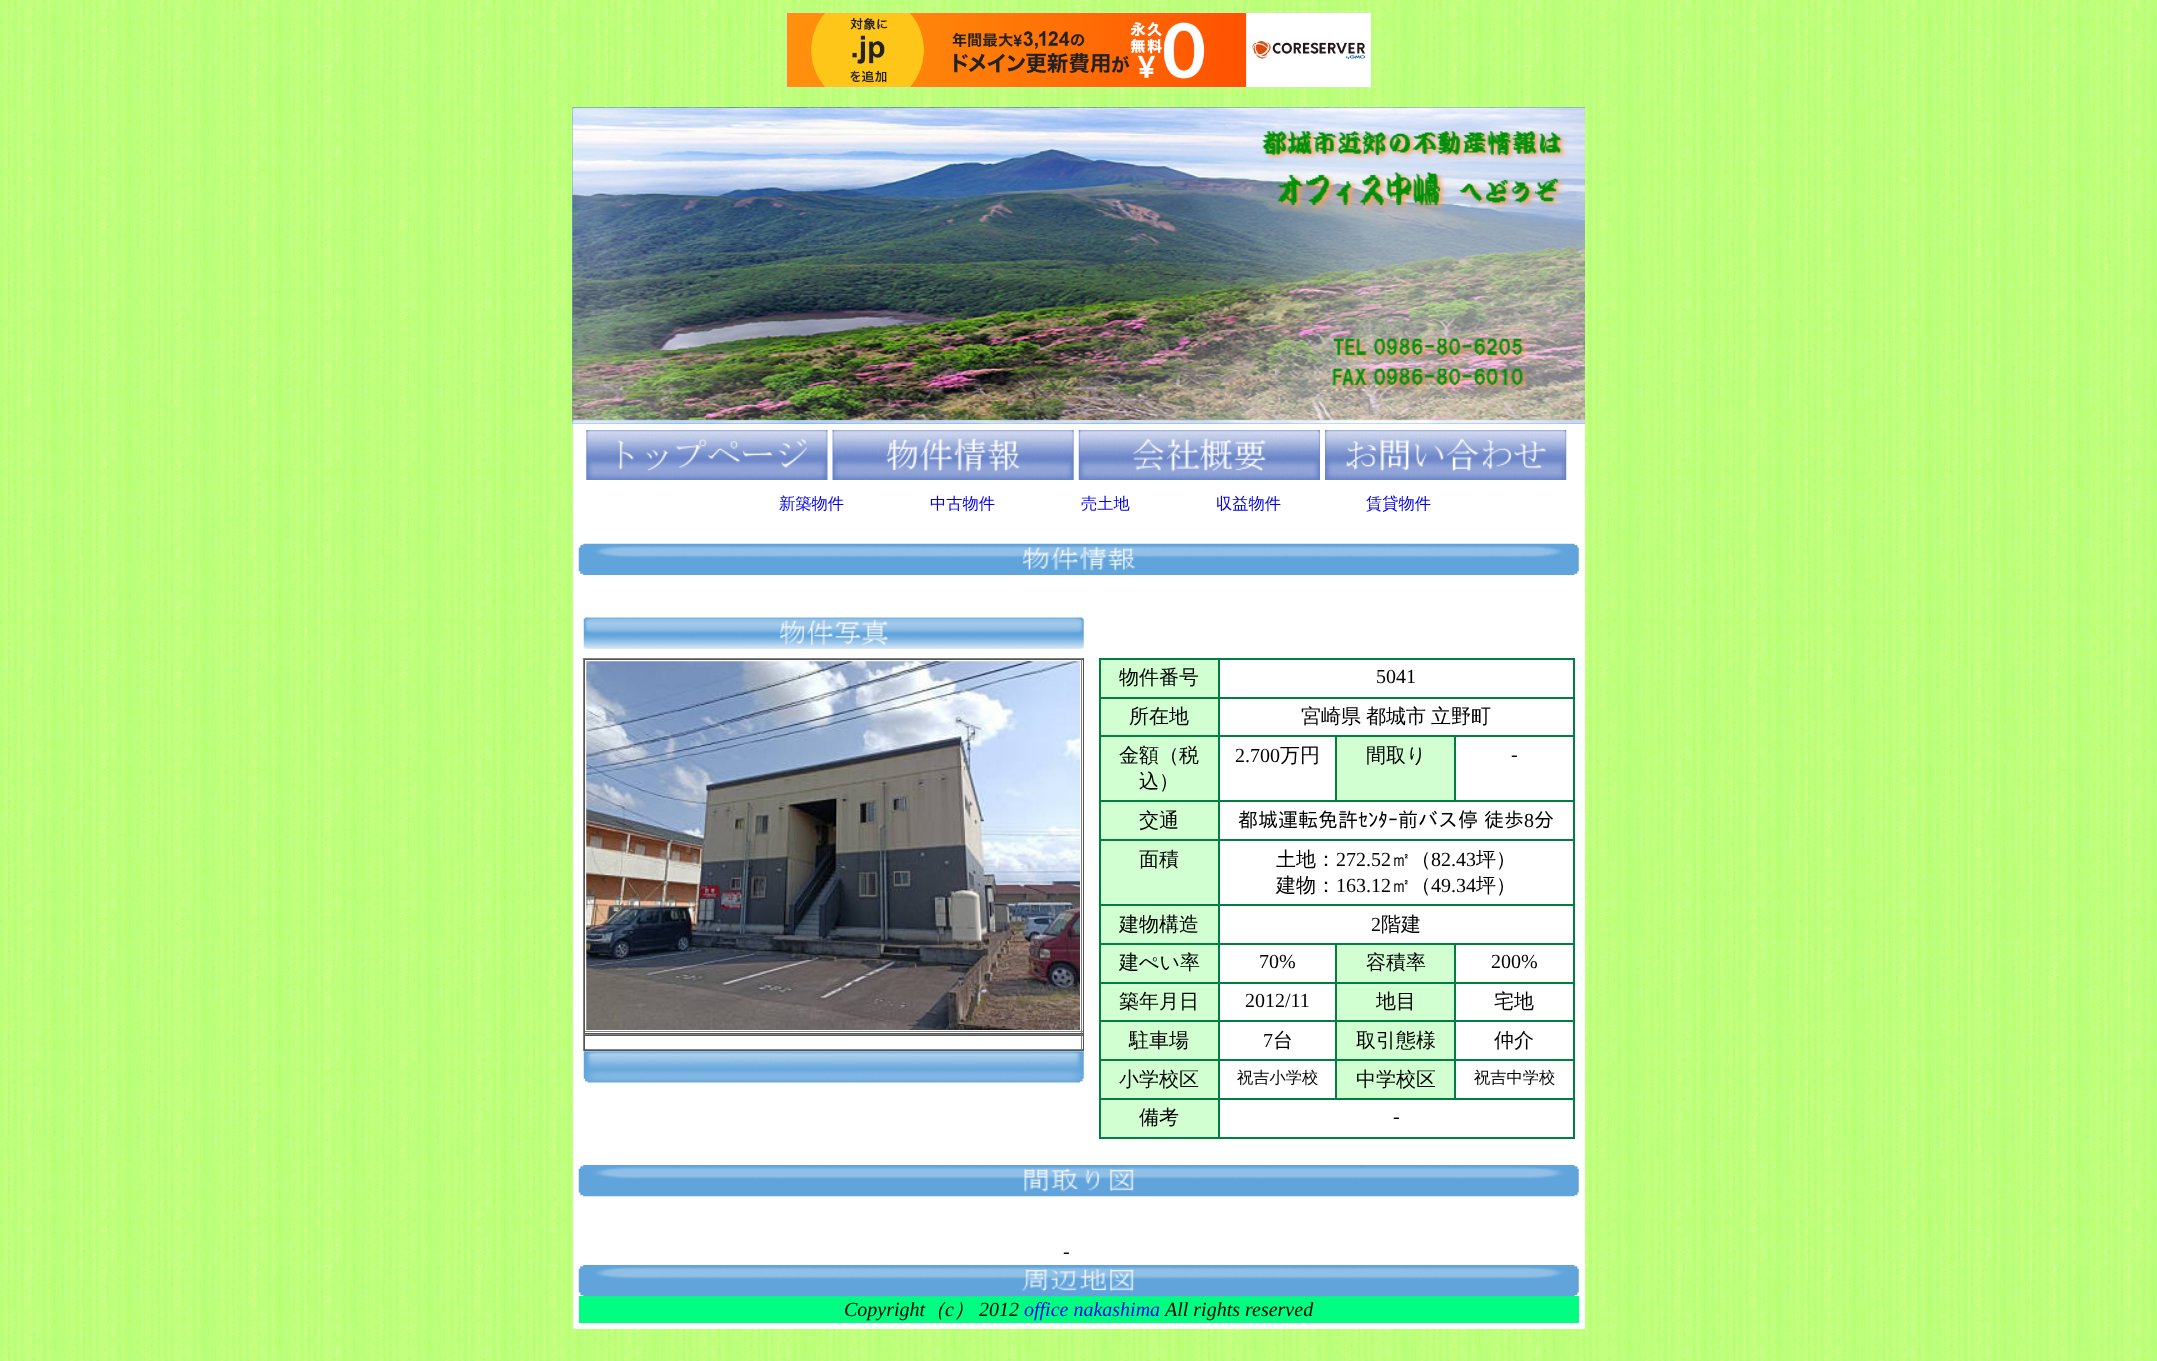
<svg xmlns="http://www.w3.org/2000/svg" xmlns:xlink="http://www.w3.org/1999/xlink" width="2157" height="1361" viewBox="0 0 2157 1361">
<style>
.cls-1{font:500 16.25px WenQuanYi Zen Hei;fill:#0000ee}
.cls-2{font:500 20px WenQuanYi Zen Hei;fill:#000000}
.cls-3{font:20px Liberation Serif;fill:#000000}
.cls-4{font:20px IPAGothic;fill:#000000}
.cls-5{font:500 16.25px WenQuanYi Zen Hei;fill:#000000}
.cls-6{font:italic 20px Liberation Serif;fill:#000000}
.cls-7{font:italic 500 20px WenQuanYi Zen Hei;fill:#000000}
.cls-8{font:italic 20px Liberation Serif;fill:#0000ee}
</style>
<rect width="100%" height="100%" fill="#ffffff"/>
<image xlink:href="image0.png" x="0" y="0" width="2157" height="1361"/>
<image xlink:href="image1.png" x="786" y="12" width="586" height="76"/>
<image xlink:href="image2.png" x="572" y="107" width="1013" height="317"/>
<rect fill="#ffffff" x="573" y="424" width="1012" height="905"/>
<image xlink:href="image3.png" x="586" y="430" width="242" height="50"/>
<image xlink:href="image4.png" x="832" y="430" width="242" height="50"/>
<image xlink:href="image5.png" x="1078" y="430" width="242" height="50"/>
<image xlink:href="image6.png" x="1325" y="430" width="242" height="50"/>
<image xlink:href="image7.png" x="578" y="543" width="1001" height="32"/>
<image xlink:href="image8.png" x="583" y="617" width="501" height="32"/>
<rect fill="#808080" x="583" y="658" width="501" height="1"/>
<rect fill="#555555" x="1083" y="658" width="1" height="376"/>
<rect fill="#555555" x="583" y="1033" width="501" height="1"/>
<rect fill="#808080" x="583" y="658" width="1" height="376"/>
<rect fill="#555555" x="584" y="659" width="499" height="1"/>
<rect fill="#808080" x="1081" y="659" width="1" height="374"/>
<rect fill="#808080" x="584" y="1031" width="499" height="1"/>
<rect fill="#555555" x="584" y="659" width="1" height="374"/>
<image xlink:href="image9.png" x="586" y="661" width="494" height="369"/>
<rect fill="#808080" x="583" y="1034" width="501" height="1"/>
<rect fill="#555555" x="1083" y="1034" width="1" height="17"/>
<rect fill="#555555" x="583" y="1050" width="501" height="1"/>
<rect fill="#808080" x="583" y="1034" width="1" height="17"/>
<rect fill="#555555" x="584" y="1035" width="499" height="1"/>
<rect fill="#808080" x="1081" y="1035" width="1" height="15"/>
<rect fill="#808080" x="584" y="1049" width="499" height="1"/>
<rect fill="#555555" x="584" y="1035" width="1" height="15"/>
<image xlink:href="image10.png" x="583" y="1051" width="501" height="32"/>
<rect fill="none" stroke="#008040" x="1099.5" y="658.5" width="475" height="480"/>
<rect fill="#d2ffd2" stroke="#008040" x="1100.5" y="659.5" width="118" height="38"/>
<rect fill="none" stroke="#008040" x="1219.5" y="659.5" width="354" height="38"/>
<rect fill="#d2ffd2" stroke="#008040" x="1100.5" y="698.5" width="118" height="37"/>
<rect fill="none" stroke="#008040" x="1219.5" y="698.5" width="354" height="37"/>
<rect fill="#d2ffd2" stroke="#008040" x="1100.5" y="736.5" width="118" height="64"/>
<rect fill="none" stroke="#008040" x="1219.5" y="736.5" width="116" height="64"/>
<rect fill="#d2ffd2" stroke="#008040" x="1336.5" y="736.5" width="118" height="64"/>
<rect fill="none" stroke="#008040" x="1455.5" y="736.5" width="118" height="64"/>
<rect fill="#d2ffd2" stroke="#008040" x="1100.5" y="801.5" width="118" height="38"/>
<rect fill="none" stroke="#008040" x="1219.5" y="801.5" width="354" height="38"/>
<rect fill="#d2ffd2" stroke="#008040" x="1100.5" y="840.5" width="118" height="64"/>
<rect fill="none" stroke="#008040" x="1219.5" y="840.5" width="354" height="64"/>
<rect fill="#d2ffd2" stroke="#008040" x="1100.5" y="905.5" width="118" height="38"/>
<rect fill="none" stroke="#008040" x="1219.5" y="905.5" width="354" height="38"/>
<rect fill="#d2ffd2" stroke="#008040" x="1100.5" y="944.5" width="118" height="38"/>
<rect fill="none" stroke="#008040" x="1219.5" y="944.5" width="116" height="38"/>
<rect fill="#d2ffd2" stroke="#008040" x="1336.5" y="944.5" width="118" height="38"/>
<rect fill="none" stroke="#008040" x="1455.5" y="944.5" width="118" height="38"/>
<rect fill="#d2ffd2" stroke="#008040" x="1100.5" y="983.5" width="118" height="37"/>
<rect fill="none" stroke="#008040" x="1219.5" y="983.5" width="116" height="37"/>
<rect fill="#d2ffd2" stroke="#008040" x="1336.5" y="983.5" width="118" height="37"/>
<rect fill="none" stroke="#008040" x="1455.5" y="983.5" width="118" height="37"/>
<rect fill="#d2ffd2" stroke="#008040" x="1100.5" y="1021.5" width="118" height="38"/>
<rect fill="none" stroke="#008040" x="1219.5" y="1021.5" width="116" height="38"/>
<rect fill="#d2ffd2" stroke="#008040" x="1336.5" y="1021.5" width="118" height="38"/>
<rect fill="none" stroke="#008040" x="1455.5" y="1021.5" width="118" height="38"/>
<rect fill="#d2ffd2" stroke="#008040" x="1100.5" y="1060.5" width="118" height="38"/>
<rect fill="none" stroke="#008040" x="1219.5" y="1060.5" width="116" height="38"/>
<rect fill="#d2ffd2" stroke="#008040" x="1336.5" y="1060.5" width="118" height="38"/>
<rect fill="none" stroke="#008040" x="1455.5" y="1060.5" width="118" height="38"/>
<rect fill="#d2ffd2" stroke="#008040" x="1100.5" y="1099.5" width="118" height="38"/>
<rect fill="none" stroke="#008040" x="1219.5" y="1099.5" width="354" height="38"/>
<image xlink:href="image11.png" x="578" y="1165" width="1001" height="32"/>
<rect fill="#00ff80" x="579" y="1296" width="1000" height="27"/>
<image xlink:href="image12.png" x="578" y="1265" width="1001" height="32"/>
<text class="cls-1" x="779" y="509">新築物件</text>
<text class="cls-1" x="930" y="509">中古物件</text>
<text class="cls-1" x="1081" y="509">売土地</text>
<text class="cls-1" x="1216" y="509">収益物件</text>
<text class="cls-1" x="1366" y="509">賃貸物件</text>
<text class="cls-2" x="1119" y="684">物件番号</text>
<text class="cls-3" x="1376" y="683">5041</text>
<text class="cls-2" x="1129" y="723">所在地</text>
<text class="cls-2" x="1301" y="723" word-spacing="-1">宮崎県 都城市 立野町</text>
<text class="cls-2" x="1119" y="762">金額（税</text>
<text class="cls-2" x="1139" y="788">込）</text>
<text class="cls-3" x="1235" y="762">2.700</text>
<text class="cls-2" x="1280" y="762">万円</text>
<text class="cls-2" x="1366" y="762">間取り</text>
<text class="cls-3" x="1511" y="761">-</text>
<text class="cls-2" x="1139" y="827">交通</text>
<text class="cls-4" x="1238" y="827">都城運転免許ｾﾝﾀｰ前バス停</text>
<text class="cls-4" x="1484" y="827">徒歩 分</text>
<text class="cls-3" x="1524" y="827">8</text>
<text class="cls-2" x="1139" y="866">面積</text>
<text class="cls-2" x="1276" y="866">土地：</text>
<text class="cls-3" x="1336" y="866">272.52</text>
<text class="cls-2" x="1391" y="866">㎡（</text>
<text class="cls-3" x="1431" y="866">82.43</text>
<text class="cls-2" x="1476" y="866">坪）</text>
<text class="cls-2" x="1276" y="892">建物：</text>
<text class="cls-3" x="1336" y="892">163.12</text>
<text class="cls-2" x="1391" y="892">㎡（</text>
<text class="cls-3" x="1431" y="892">49.34</text>
<text class="cls-2" x="1476" y="892">坪）</text>
<text class="cls-2" x="1119" y="931">建物構造</text>
<text class="cls-3" x="1371" y="931">2</text>
<text class="cls-2" x="1381" y="931">階建</text>
<text class="cls-2" x="1119" y="969">建ぺい率</text>
<text class="cls-3" x="1259" y="968">70%</text>
<text class="cls-2" x="1366" y="969">容積率</text>
<text class="cls-3" x="1491" y="968">200%</text>
<text class="cls-2" x="1119" y="1008">築年月日</text>
<text class="cls-3" x="1245" y="1007">2012/11</text>
<text class="cls-2" x="1376" y="1008">地目</text>
<text class="cls-2" x="1494" y="1008">宅地</text>
<text class="cls-2" x="1129" y="1047">駐車場</text>
<text class="cls-3" x="1263" y="1047">7</text>
<text class="cls-2" x="1273" y="1047">台</text>
<text class="cls-2" x="1356" y="1047">取引態様</text>
<text class="cls-2" x="1494" y="1047">仲介</text>
<text class="cls-2" x="1119" y="1086">小学校区</text>
<text class="cls-5" x="1237" y="1083">祝吉小学校</text>
<text class="cls-2" x="1356" y="1086">中学校区</text>
<text class="cls-5" x="1474" y="1083">祝吉中学校</text>
<text class="cls-2" x="1139" y="1124">備考</text>
<text class="cls-3" x="1393" y="1123">-</text>
<text class="cls-3" x="1063" y="1258">-</text>
<text class="cls-6" x="844" y="1316">Copyright</text>
<text class="cls-7" x="925" y="1316">（</text>
<text class="cls-6" x="945" y="1316">c</text>
<text class="cls-7" x="954" y="1316">）</text>
<text class="cls-6" x="979" y="1316">2012</text>
<text class="cls-8" x="1024" y="1316">office nakashima</text>
<text class="cls-6" x="1165" y="1316">All rights reserved</text>
</svg>
